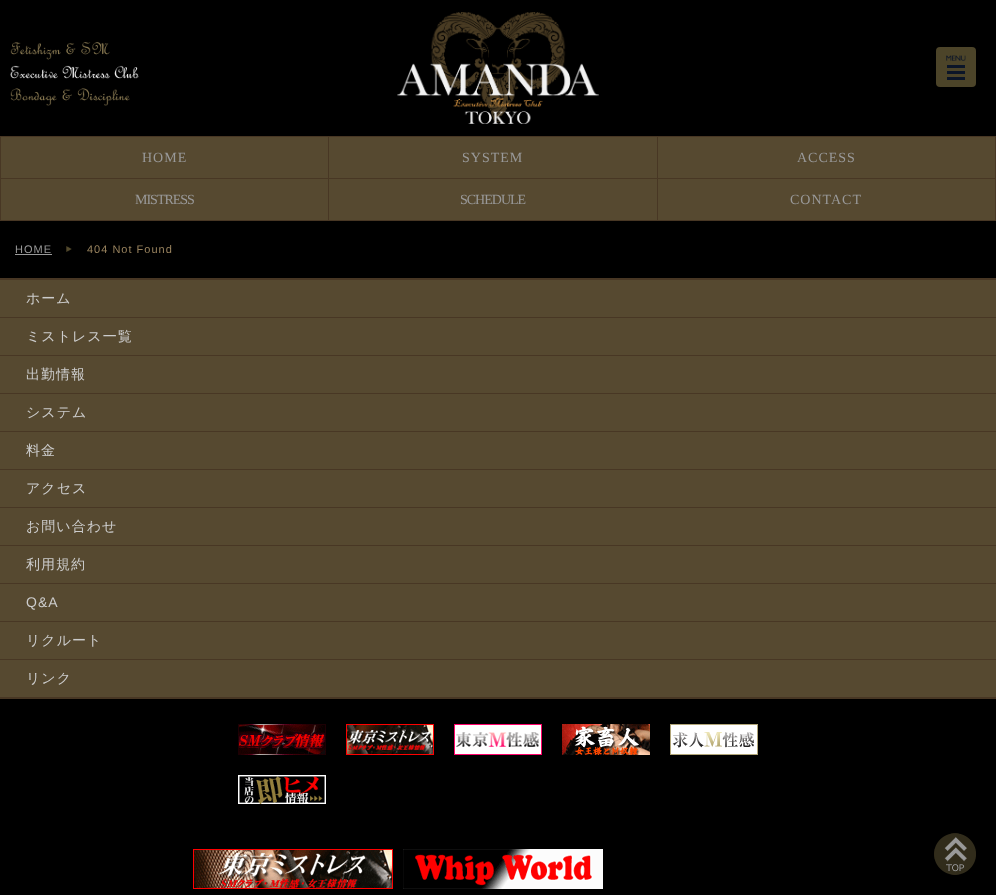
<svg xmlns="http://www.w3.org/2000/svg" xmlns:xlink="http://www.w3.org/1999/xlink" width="996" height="895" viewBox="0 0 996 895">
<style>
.cls-1{font:14px Liberation Serif;letter-spacing:1px;fill:#999999}
.cls-2{font:14px Liberation Serif;letter-spacing:-1px;fill:#999999}
.cls-3{font:11px Liberation Sans;letter-spacing:1px;fill:#999999}
.cls-4{font:11px Liberation Sans;letter-spacing:1px;fill:#99835e}
.cls-5{font:500 14px WenQuanYi Zen Hei;letter-spacing:1px;fill:#cccccc}
.cls-6{font:14px Liberation Sans;letter-spacing:1px;fill:#cccccc}
</style>
<rect width="100%" height="100%" fill="#000000"/>
<image xlink:href="image0.png" x="10" y="42" width="129" height="64"/>
<image xlink:href="image1.png" x="397" y="12" width="202" height="112"/>
<rect fill="#4c4429" x="936" y="47" width="40" height="40" rx="4"/>
<image xlink:href="image2.png" x="946" y="55" width="20" height="6"/>
<rect fill="#0b1528" x="947" y="65" width="18" height="3"/>
<rect fill="#0b1528" x="947" y="71" width="18" height="3"/>
<rect fill="#0b1528" x="947" y="77" width="18" height="3"/>
<rect fill="#483724" x="0" y="136" width="996" height="1"/>
<rect fill="#483724" x="0" y="136" width="1" height="85"/>
<rect fill="#564930" x="1" y="137" width="327" height="41"/>
<rect fill="#483724" x="328" y="137" width="1" height="84"/>
<rect fill="#483724" x="1" y="178" width="328" height="1"/>
<rect fill="#564930" x="329" y="137" width="328" height="41"/>
<rect fill="#483724" x="657" y="137" width="1" height="84"/>
<rect fill="#483724" x="329" y="178" width="329" height="1"/>
<rect fill="#564930" x="658" y="137" width="337" height="41"/>
<rect fill="#483724" x="995" y="137" width="1" height="84"/>
<rect fill="#483724" x="658" y="178" width="338" height="1"/>
<rect fill="#564930" x="1" y="179" width="327" height="41"/>
<rect fill="#483724" x="1" y="220" width="995" height="1"/>
<rect fill="#564930" x="329" y="179" width="328" height="41"/>
<rect fill="#564930" x="658" y="179" width="337" height="41"/>
<image xlink:href="image3.png" x="66" y="246" width="6" height="6"/>
<rect fill="#999999" x="15" y="254" width="37" height="1"/>
<rect fill="#483724" x="0" y="278" width="996" height="2"/>
<rect fill="#483724" x="0" y="697" width="996" height="2"/>
<rect fill="#483724" x="0" y="317" width="996" height="1"/>
<rect fill="#564930" x="0" y="280" width="996" height="37"/>
<rect fill="#483724" x="0" y="355" width="996" height="1"/>
<rect fill="#564930" x="0" y="318" width="996" height="37"/>
<rect fill="#483724" x="0" y="393" width="996" height="1"/>
<rect fill="#564930" x="0" y="356" width="996" height="37"/>
<rect fill="#483724" x="0" y="431" width="996" height="1"/>
<rect fill="#564930" x="0" y="394" width="996" height="37"/>
<rect fill="#483724" x="0" y="469" width="996" height="1"/>
<rect fill="#564930" x="0" y="432" width="996" height="37"/>
<rect fill="#483724" x="0" y="507" width="996" height="1"/>
<rect fill="#564930" x="0" y="470" width="996" height="37"/>
<rect fill="#483724" x="0" y="545" width="996" height="1"/>
<rect fill="#564930" x="0" y="508" width="996" height="37"/>
<rect fill="#483724" x="0" y="583" width="996" height="1"/>
<rect fill="#564930" x="0" y="546" width="996" height="37"/>
<rect fill="#483724" x="0" y="621" width="996" height="1"/>
<rect fill="#564930" x="0" y="584" width="996" height="37"/>
<rect fill="#483724" x="0" y="659" width="996" height="1"/>
<rect fill="#564930" x="0" y="622" width="996" height="37"/>
<rect fill="#564930" x="0" y="660" width="996" height="37"/>
<image xlink:href="image4.png" x="238" y="724" width="88" height="31"/>
<image xlink:href="image5.png" x="346" y="724" width="88" height="31"/>
<image xlink:href="image6.png" x="454" y="724" width="88" height="31"/>
<image xlink:href="image7.png" x="562" y="724" width="88" height="31"/>
<image xlink:href="image8.png" x="670" y="724" width="88" height="31"/>
<image xlink:href="image9.png" x="238" y="775" width="88" height="29"/>
<image xlink:href="image10.png" x="193" y="849" width="200" height="40"/>
<image xlink:href="image11.png" x="403" y="849" width="200" height="40"/>
<image xlink:href="image12.png" x="934" y="833" width="42" height="42"/>
<text class="cls-1" x="142" y="162">HOME</text>
<text class="cls-1" x="462" y="162">SYSTEM</text>
<text class="cls-1" x="797" y="162">ACCESS</text>
<text class="cls-2" x="135" y="204">MISTRESS</text>
<text class="cls-2" x="460" y="204">SCHEDULE</text>
<text class="cls-1" x="790" y="204">CONTACT</text>
<text class="cls-3" x="15" y="253">HOME</text>
<text class="cls-4" x="87" y="253">404 Not Found</text>
<text class="cls-5" x="26" y="303">ホーム</text>
<text class="cls-5" x="26" y="341">ミストレス一覧</text>
<text class="cls-5" x="26" y="379">出勤情報</text>
<text class="cls-5" x="26" y="417">システム</text>
<text class="cls-5" x="26" y="455">料金</text>
<text class="cls-5" x="26" y="493">アクセス</text>
<text class="cls-5" x="26" y="531">お問い合わせ</text>
<text class="cls-5" x="26" y="569">利用規約</text>
<text class="cls-6" x="26" y="607">Q&amp;A</text>
<text class="cls-5" x="26" y="645">リクルート</text>
<text class="cls-5" x="26" y="683">リンク</text>
</svg>
